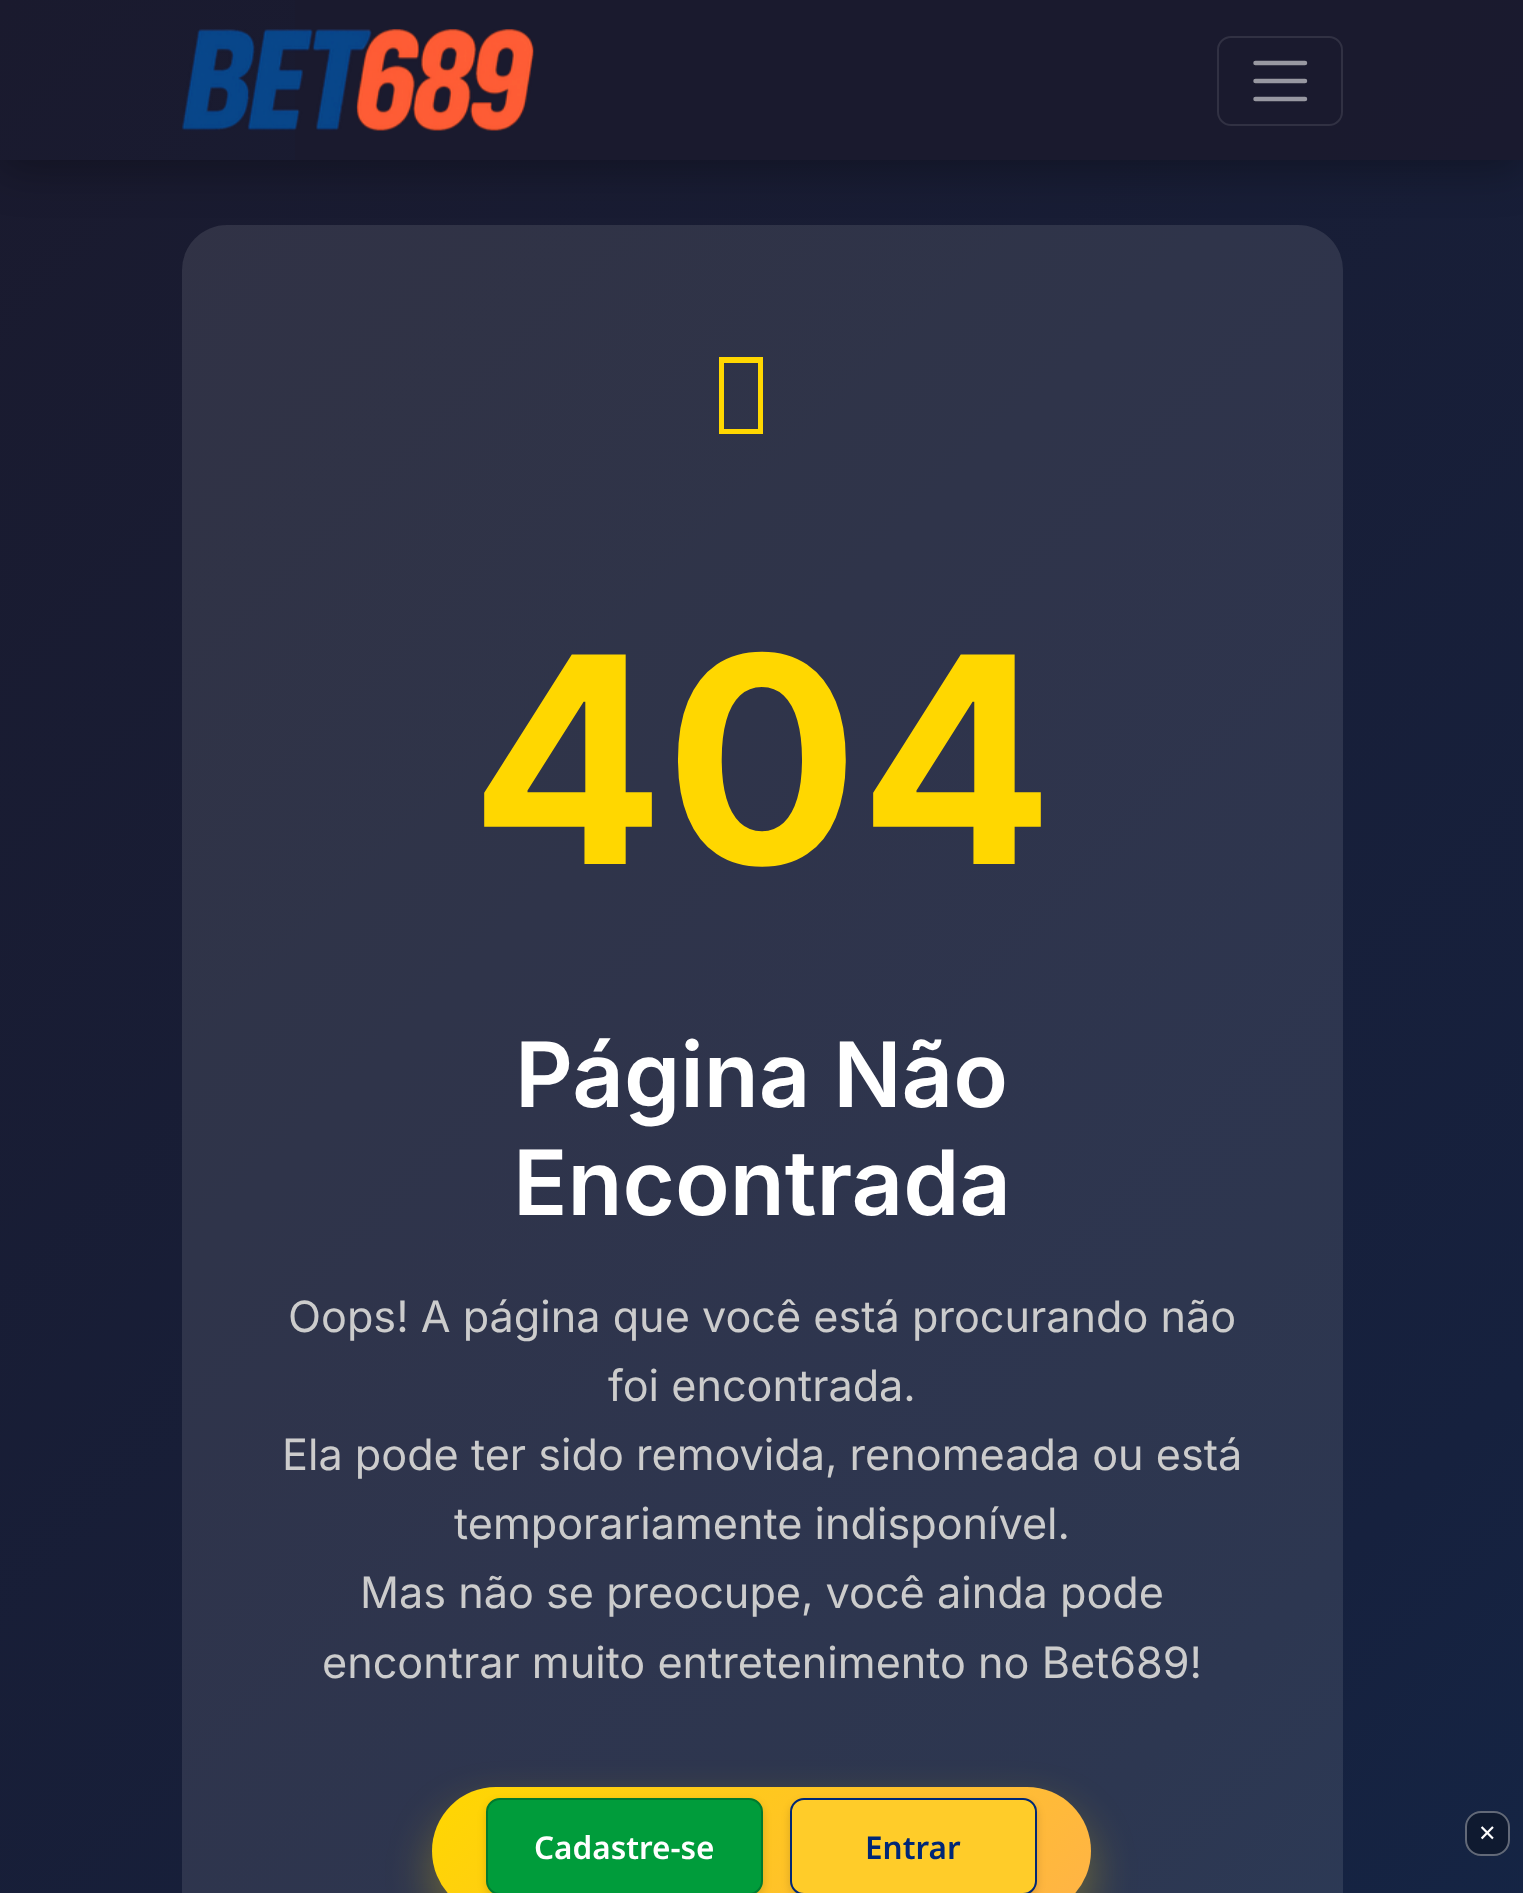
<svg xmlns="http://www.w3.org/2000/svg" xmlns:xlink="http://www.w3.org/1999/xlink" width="1523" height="1893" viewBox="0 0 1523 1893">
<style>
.cls-1{font:bold 288px Inter;fill:#ffd700}
.cls-2{font:600 90px Inter;fill:#ffffff}
.cls-3{font:43.2px Inter;fill:#cccccc}
.cls-4{font:29px Noto Sans;fill:#ffffff}
.cls-5{font:600 31.5px Noto Sans;fill:#ffffff}
.cls-6{font:600 31.5px Noto Sans;fill:#002776}
</style>
<defs>
<linearGradient id="g1" gradientUnits="userSpaceOnUse" x1="-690" y1="690" x2="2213" y2="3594"><stop offset="0" stop-color="#1a1a2e"/><stop offset="0.5" stop-color="#16213e"/><stop offset="1" stop-color="#0f3460"/></linearGradient>
<clipPath id="clip1"><path d="M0 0H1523V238H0ZM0 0H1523V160H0Z" clip-rule="evenodd"/></clipPath>
<linearGradient id="g2" gradientUnits="userSpaceOnUse" x1="565" y1="1654" x2="959" y2="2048"><stop offset="0" stop-color="#ffd700"/><stop offset="1" stop-color="#ffb347"/></linearGradient>
</defs>
<rect width="100%" height="100%" fill="#ffffff"/>
<rect fill="url(#g1)" x="0" y="0" width="1523" height="1893"/>
<rect fill="#ffffff" fill-opacity="0.1" x="182" y="225" width="1161" height="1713" rx="45"/>
<g clip-path="url(#clip1)">
<rect fill="#000000" fill-opacity="0.3" filter="blur(22.5px)" x="0" y="9" width="1523" height="160"/>
</g>
<rect fill="#1a1a2e" fill-opacity="0.95" x="295" y="0" width="1228" height="160"/>
<image xlink:href="image0.png" x="182" y="29" width="352" height="102"/>
<rect fill="none" stroke="#313143" stroke-width="2" x="1218" y="37" width="124" height="88" rx="13"/>
<path fill="none" stroke="#9898a1" stroke-width="4.5" stroke-linecap="round" d="M1255.5 63H1305M1255.5 81H1305M1255.5 99H1305"/>
<path fill="#ffd700" d="M719 434V357H763V434ZM724 429H758V363H724Z"/>
<rect fill="#ffd700" fill-opacity="0.3" filter="blur(22.5px)" x="432" y="1809" width="659" height="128" rx="64"/>
<rect fill="url(#g2)" x="432" y="1787" width="659" height="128" rx="64"/>
<rect fill="#0f1a30" x="1465" y="1811" width="45" height="45" rx="16"/>
<rect fill="none" stroke="#ffffff" stroke-opacity="0.35" stroke-width="2" x="1466" y="1812" width="43" height="43" rx="15"/>
<rect fill="#000000" fill-opacity="0.15" filter="blur(4.5px)" x="486" y="1802" width="277" height="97" rx="14"/>
<rect fill="#009c3b" stroke="#007a2f" stroke-width="2" x="487" y="1799" width="275" height="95" rx="13"/>
<rect fill="#000000" fill-opacity="0.15" filter="blur(4.5px)" x="790" y="1802" width="247" height="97" rx="14"/>
<rect fill="#ffcc29" stroke="#002776" stroke-width="2" x="791" y="1799" width="245" height="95" rx="13"/>
<text class="cls-1" x="470" y="864">404</text>
<text class="cls-2" x="515" y="1107">Página Não</text>
<text class="cls-2" x="513" y="1215">Encontrada</text>
<text class="cls-3" x="288" y="1332">Oops! A página que você está procurando não</text>
<text class="cls-3" x="608" y="1401">foi encontrada.</text>
<text class="cls-3" x="282" y="1470">Ela pode ter sido removida, renomeada ou está</text>
<text class="cls-3" x="454" y="1539">temporariamente indisponível.</text>
<text class="cls-3" x="360" y="1608">Mas não se preocupe, você ainda pode</text>
<text class="cls-3" x="322" y="1678">encontrar muito entretenimento no Bet689!</text>
<text class="cls-4" x="1479" y="1843">×</text>
<text class="cls-5" x="534" y="1859">Cadastre-se</text>
<text class="cls-6" x="865" y="1859">Entrar</text>
</svg>
